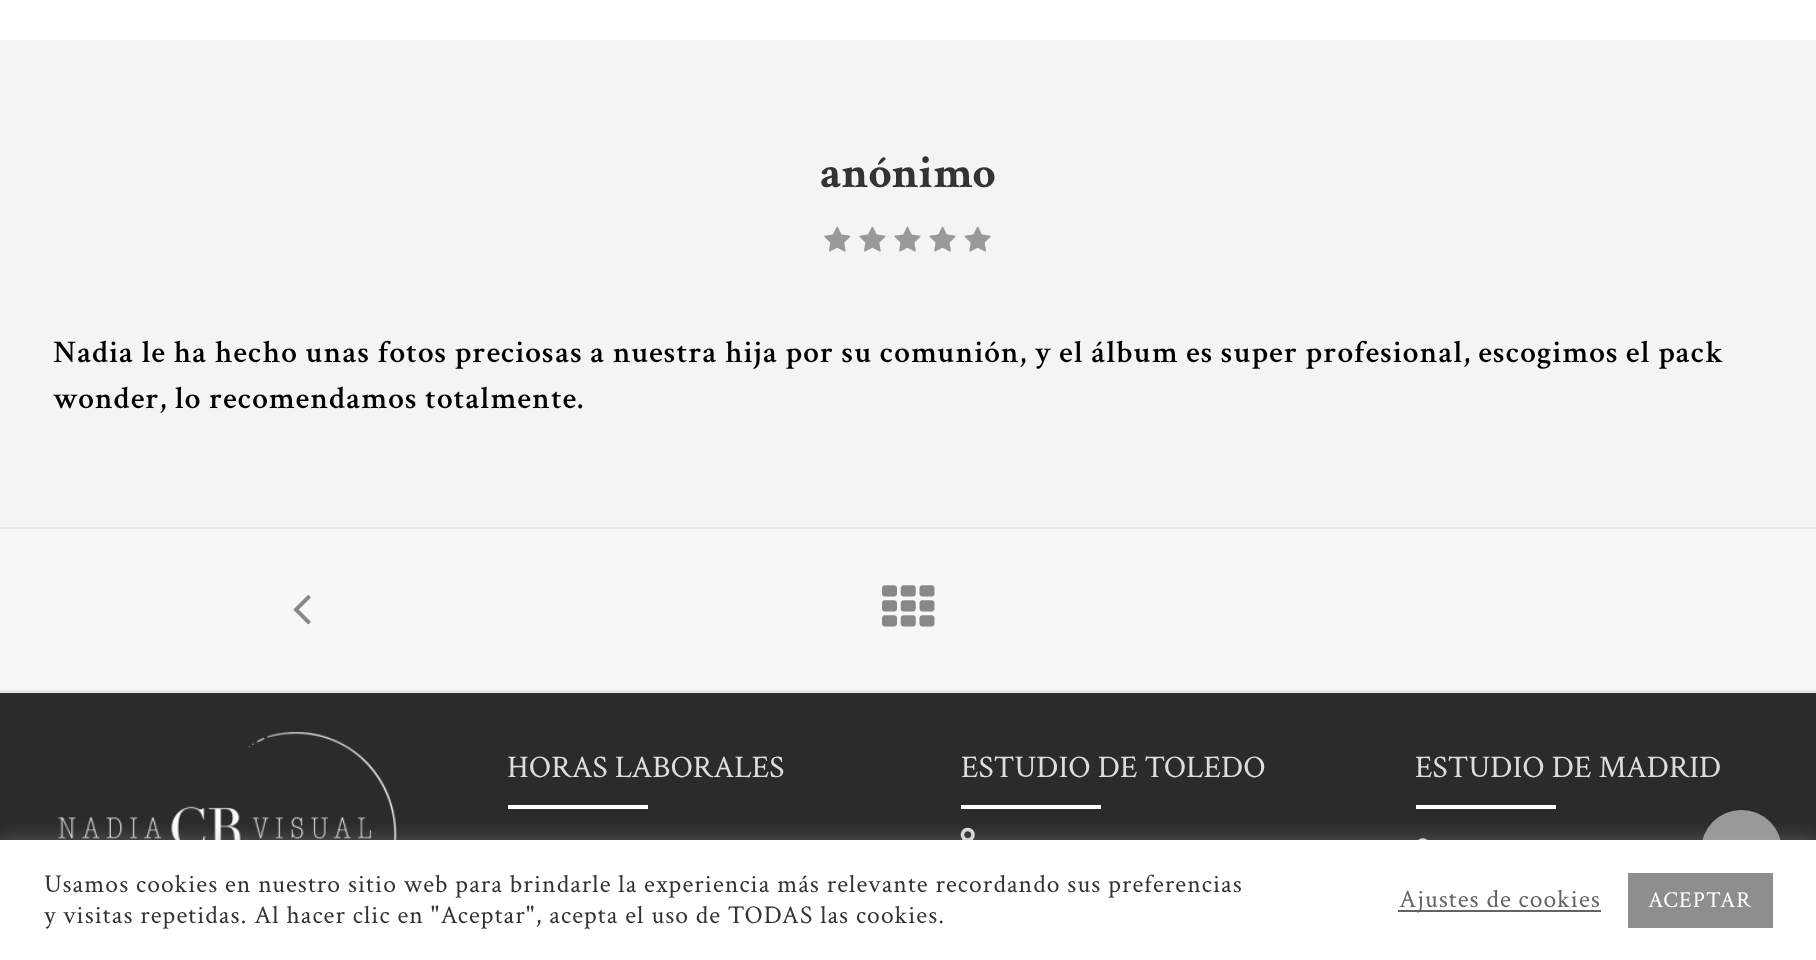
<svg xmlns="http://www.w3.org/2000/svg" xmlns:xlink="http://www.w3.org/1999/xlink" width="1816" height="960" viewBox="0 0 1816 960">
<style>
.cls-1{font:bold 45.5px Crimson Text;fill:#333333}
.cls-2{font:600 31.5px Crimson Text;letter-spacing:1.05px;fill:#000000}
.cls-3{font:31.5px Crimson Text;fill:#dddddd}
.cls-4{font:25.65px Crimson Text;letter-spacing:1.05px;fill:#333333}
.cls-5{font:25.65px Crimson Text;letter-spacing:1.05px;fill:#636363}
.cls-6{font:22.75px Crimson Text;letter-spacing:1.05px;fill:#ffffff}
</style>
<rect width="100%" height="100%" fill="#2b2b2b"/>
<rect fill="#ffffff" x="0" y="0" width="1816" height="40"/>
<rect fill="#f4f4f4" x="0" y="40" width="1816" height="487"/>
<image xlink:href="image1.png" x="824" y="227" width="167" height="25"/>
<image xlink:href="image0.png" x="824" y="226" width="167" height="26"/>
<rect fill="#f7f7f7" x="0" y="529" width="1816" height="161"/>
<rect fill="#e8e8e8" x="0" y="690" width="1816" height="1"/>
<rect fill="#e8e8e8" x="0" y="527" width="1816" height="2"/>
<image xlink:href="image2.png" x="293" y="595" width="18" height="30"/>
<image xlink:href="image3.png" x="882" y="585" width="53" height="42"/>
<rect fill="#e9eaee" x="0" y="692" width="1816" height="1"/>
<rect fill="#dbdce0" x="0" y="691" width="1816" height="1"/>
<image xlink:href="image4.png" x="58" y="731" width="339" height="109"/>
<rect fill="#ffffff" x="508" y="805" width="140" height="4"/>
<rect fill="#ffffff" x="961" y="805" width="140" height="4"/>
<image xlink:href="image5.png" x="960" y="827" width="15" height="13"/>
<rect fill="#ffffff" x="1416" y="805" width="140" height="4"/>
<image xlink:href="image6.png" x="1418" y="838" width="10" height="2"/>
<circle fill="#999999" cx="1741.5" cy="850.5" r="40.5"/>
<rect fill="#acabab" fill-opacity="0.3" filter="blur(9px)" x="0" y="838" width="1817" height="121"/>
<rect fill="#ffffff" x="0" y="840" width="1816" height="120"/>
<rect fill="#636363" x="1398" y="910" width="203" height="2"/>
<rect fill="#8e8e8e" x="1628" y="873" width="145" height="55"/>
<text class="cls-1" x="820" y="187">anónimo</text>
<text class="cls-2"><tspan x="53" y="362">Nadia le ha hecho unas fotos preciosas a nuestra hija por su comunión, y el álbum es super profesional, escogimos el pack</tspan><tspan x="53" y="408">wonder, lo recomendamos totalmente.</tspan></text>
<text class="cls-3" x="507" y="777">HORAS LABORALES</text>
<text class="cls-3" x="961" y="777">ESTUDIO DE TOLEDO</text>
<text class="cls-3" x="1415" y="777">ESTUDIO DE MADRID</text>
<text class="cls-4"><tspan x="44" y="892">Usamos cookies en nuestro sitio web para brindarle la experiencia más relevante recordando sus preferencias</tspan><tspan x="44" y="923">y visitas repetidas. Al hacer clic en "Aceptar", acepta el uso de TODAS las cookies.</tspan></text>
<text class="cls-5" x="1399" y="907">Ajustes de cookies</text>
<text class="cls-6" x="1648" y="907">ACEPTAR</text>
</svg>
